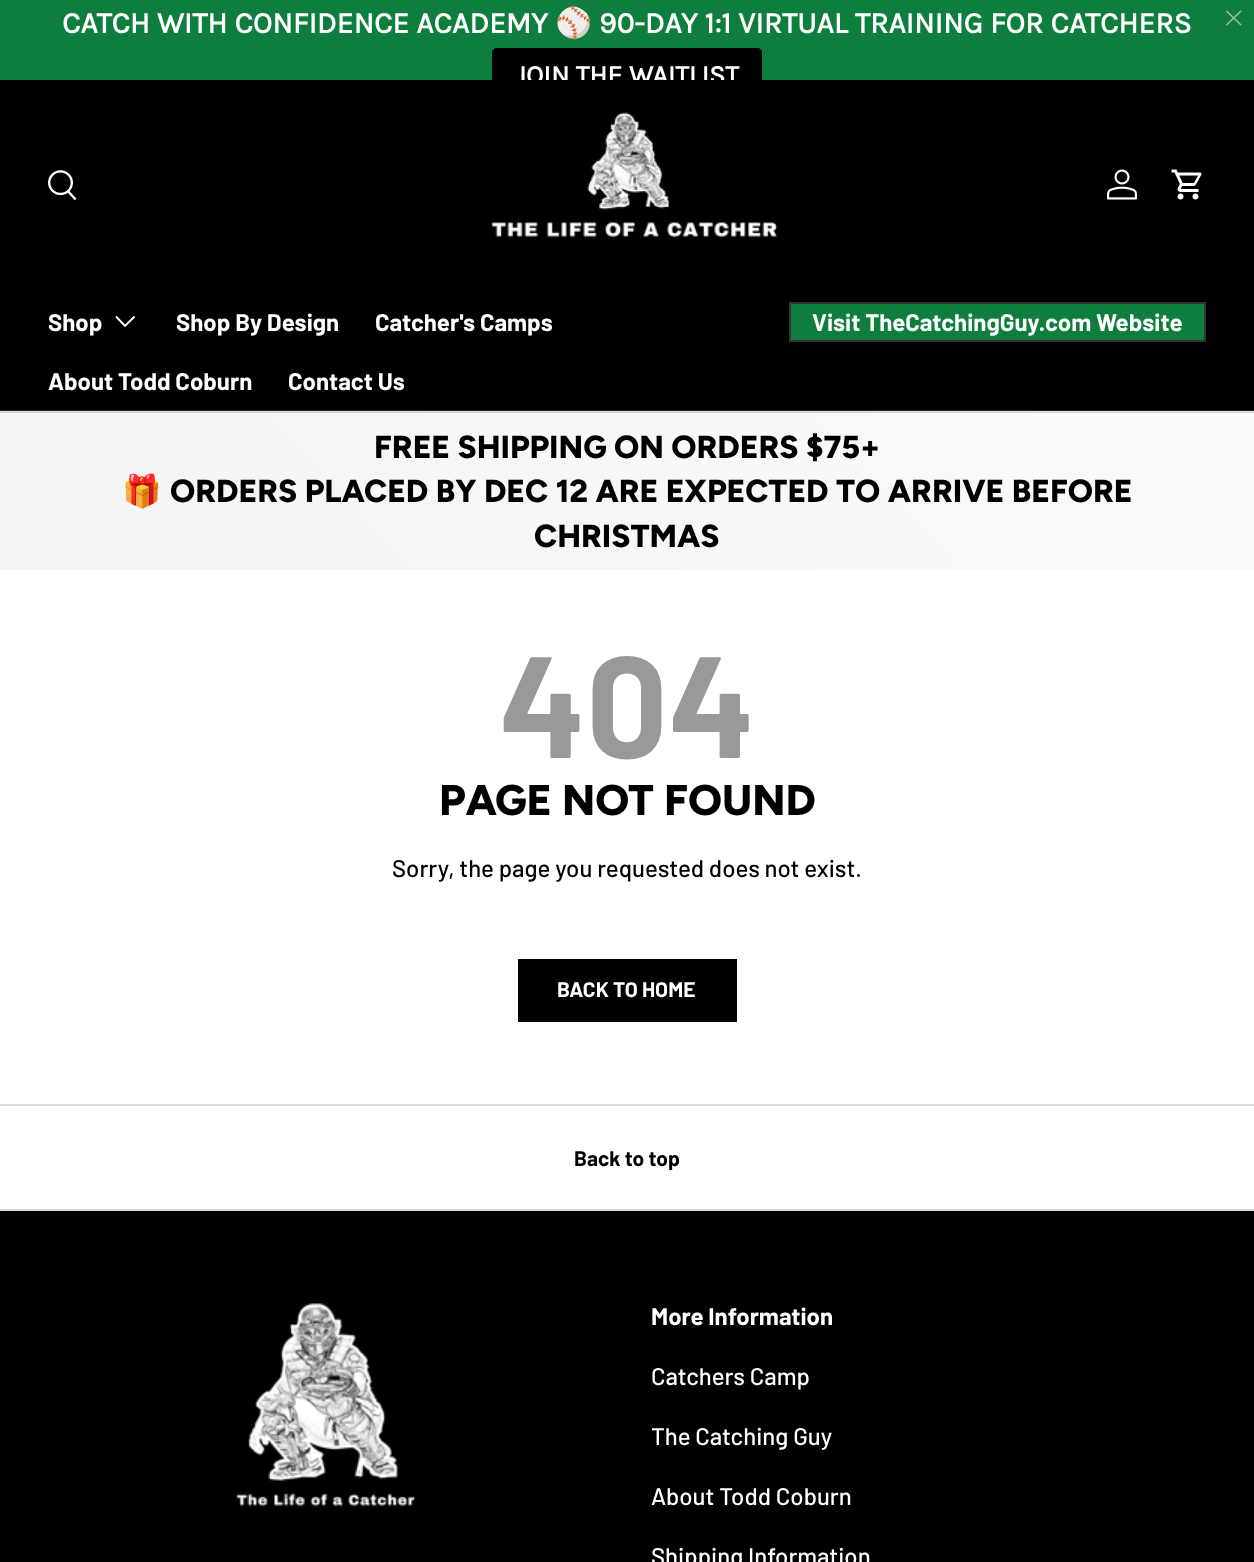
<svg xmlns="http://www.w3.org/2000/svg" xmlns:xlink="http://www.w3.org/1999/xlink" width="1254" height="1562" viewBox="0 0 1254 1562">
<style>
.cls-1{font:bold 30px Karla;fill:#ffffff}
.cls-2{font:bold 30px Noto Color Emoji;fill:#ffffff}
.cls-3{font:bold 27px Karla;fill:#ffffff}
.cls-4{font:bold 24px Barlow;fill:#ffffff}
.cls-5{font:800 31.85px Figtree;fill:#000000}
.cls-6{font:bold 31.85px Noto Color Emoji;fill:#000000}
.cls-7{font:bold 144px Barlow;fill:#999999}
.cls-8{font:800 43px Figtree;fill:#000000}
.cls-9{font:500 24px Barlow;fill:#000000}
.cls-10{font:bold 21px Barlow;fill:#ffffff}
.cls-11{font:bold 21px Barlow;fill:#000000}
.cls-12{font:500 24px Barlow;fill:#ffffff}
</style>
<defs>
<linearGradient id="g1" gradientUnits="userSpaceOnUse" x1="-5.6" y1="175" x2="1173" y2="469"><stop offset="0.6" stop-color="#369c63"/><stop offset="0.6" stop-color="#0e7e3f"/><stop offset="1" stop-color="#0e7e3f"/></linearGradient>
<linearGradient id="g2" gradientUnits="userSpaceOnUse" x1="263" y1="685" x2="991" y2="-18"><stop offset="0.13" stop-color="#d0d0d0"/><stop offset="0.86" stop-color="#d4d4d4"/></linearGradient>
<linearGradient id="g3" gradientUnits="userSpaceOnUse" x1="263" y1="685" x2="991" y2="-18"><stop offset="0.13" stop-color="#d7d7d7"/><stop offset="0.86" stop-color="#dadada"/></linearGradient>
<linearGradient id="g4" gradientUnits="userSpaceOnUse" x1="263" y1="843" x2="991" y2="140"><stop offset="0.13" stop-color="#f5f5f5"/><stop offset="0.86" stop-color="#f9f9f9"/></linearGradient>
<linearGradient id="g5" gradientUnits="userSpaceOnUse" x1="99" y1="912" x2="723" y2="1068"><stop offset="0.6" stop-color="#2e2e2e"/><stop offset="0.6" stop-color="#000000"/><stop offset="1" stop-color="#000000"/></linearGradient>
<clipPath id="clip1"><rect x="0" y="0" width="1254" height="80"/></clipPath>
</defs>
<rect width="100%" height="100%" fill="#ffffff"/>
<rect fill="#0e7e3f" x="0" y="0" width="1254" height="80"/>
<path fill="#000000" d="M497 48H757C760 48 762 50 762 53V80H492V53C492 50 494 48 497 48Z"/>
<path fill="#a6bcb0" d="M1226.5 10.5H1227L1241.5 24.5L1241 25.5H1240.5L1226 11.5Z"/>
<path fill="#a6bcb0" d="M1241 10.5L1241.5 11.5L1227 25.5H1226.5L1226 24.5L1240.5 10.5Z"/>
<rect fill="#000000" x="0" y="80" width="1254" height="330"/>
<rect fill="#262626" x="0" y="410" width="1254" height="1"/>
<image xlink:href="image0.png" x="48" y="170" width="29" height="31"/>
<image xlink:href="image1.png" x="491" y="112" width="287" height="127"/>
<image xlink:href="image2.png" x="1107" y="169" width="30" height="31"/>
<image xlink:href="image3.png" x="1171" y="169" width="31" height="31"/>
<path fill="none" stroke="#ffffff" stroke-width="1.9" d="M134.5 316.5L125 326L116 316.5"/>
<rect fill="url(#g1)" x="791" y="304" width="413" height="36"/>
<rect fill="none" stroke="#333333" stroke-width="2" x="790" y="303" width="415" height="38"/>
<rect fill="url(#g2)" x="0" y="412" width="1254" height="1"/>
<rect fill="url(#g3)" x="0" y="411" width="1254" height="1"/>
<rect fill="url(#g4)" x="0" y="413" width="1254" height="157"/>
<rect fill="url(#g5)" x="520" y="961" width="215" height="59"/>
<rect fill="none" stroke="#000000" stroke-width="2" x="519" y="960" width="217" height="61"/>
<rect fill="#d9d9d9" x="0" y="1104" width="1254" height="2"/>
<rect fill="#d9d9d9" x="0" y="1209" width="1254" height="2"/>
<rect fill="#000000" x="0" y="1211" width="1254" height="351"/>
<image xlink:href="image4.png" x="235" y="1299" width="181" height="210"/>
<text class="cls-1" x="62" y="33">CATCH WITH CONFIDENCE ACADEMY</text>
<text class="cls-2" x="555" y="33">⚾️</text>
<text class="cls-1" x="599" y="33">90-DAY 1:1 VIRTUAL TRAINING FOR CATCHERS</text>
<g clip-path="url(#clip1)">
<text class="cls-3" x="515" y="84">JOIN THE WAITLIST</text>
</g>
<text class="cls-4" x="48" y="331">Shop</text>
<text class="cls-4" x="176" y="331">Shop By Design</text>
<text class="cls-4" x="375" y="331">Catcher's Camps</text>
<text class="cls-4" x="48" y="390">About Todd Coburn</text>
<text class="cls-4" x="288" y="390">Contact Us</text>
<text class="cls-4" x="812" y="331">Visit TheCatchingGuy.com Website</text>
<text class="cls-5" x="374" y="458">FREE SHIPPING ON ORDERS $75+</text>
<text class="cls-6" x="122" y="502">🎁</text>
<text class="cls-5" x="170" y="502">ORDERS PLACED BY DEC 12 ARE EXPECTED TO ARRIVE BEFORE</text>
<text class="cls-5" x="534" y="547">CHRISTMAS</text>
<text class="cls-7" x="499" y="758">404</text>
<text class="cls-8" x="439" y="815">PAGE NOT FOUND</text>
<text class="cls-9" x="392" y="877">Sorry, the page you requested does not exist.</text>
<text class="cls-10" x="557" y="997">BACK TO HOME</text>
<text class="cls-11" x="574" y="1166">Back to top</text>
<text class="cls-4" x="651" y="1325">More Information</text>
<text class="cls-12" x="651" y="1385">Catchers Camp</text>
<text class="cls-12" x="651" y="1445">The Catching Guy</text>
<text class="cls-12" x="651" y="1505">About Todd Coburn</text>
<text class="cls-12" x="651" y="1565">Shipping Information</text>
</svg>
